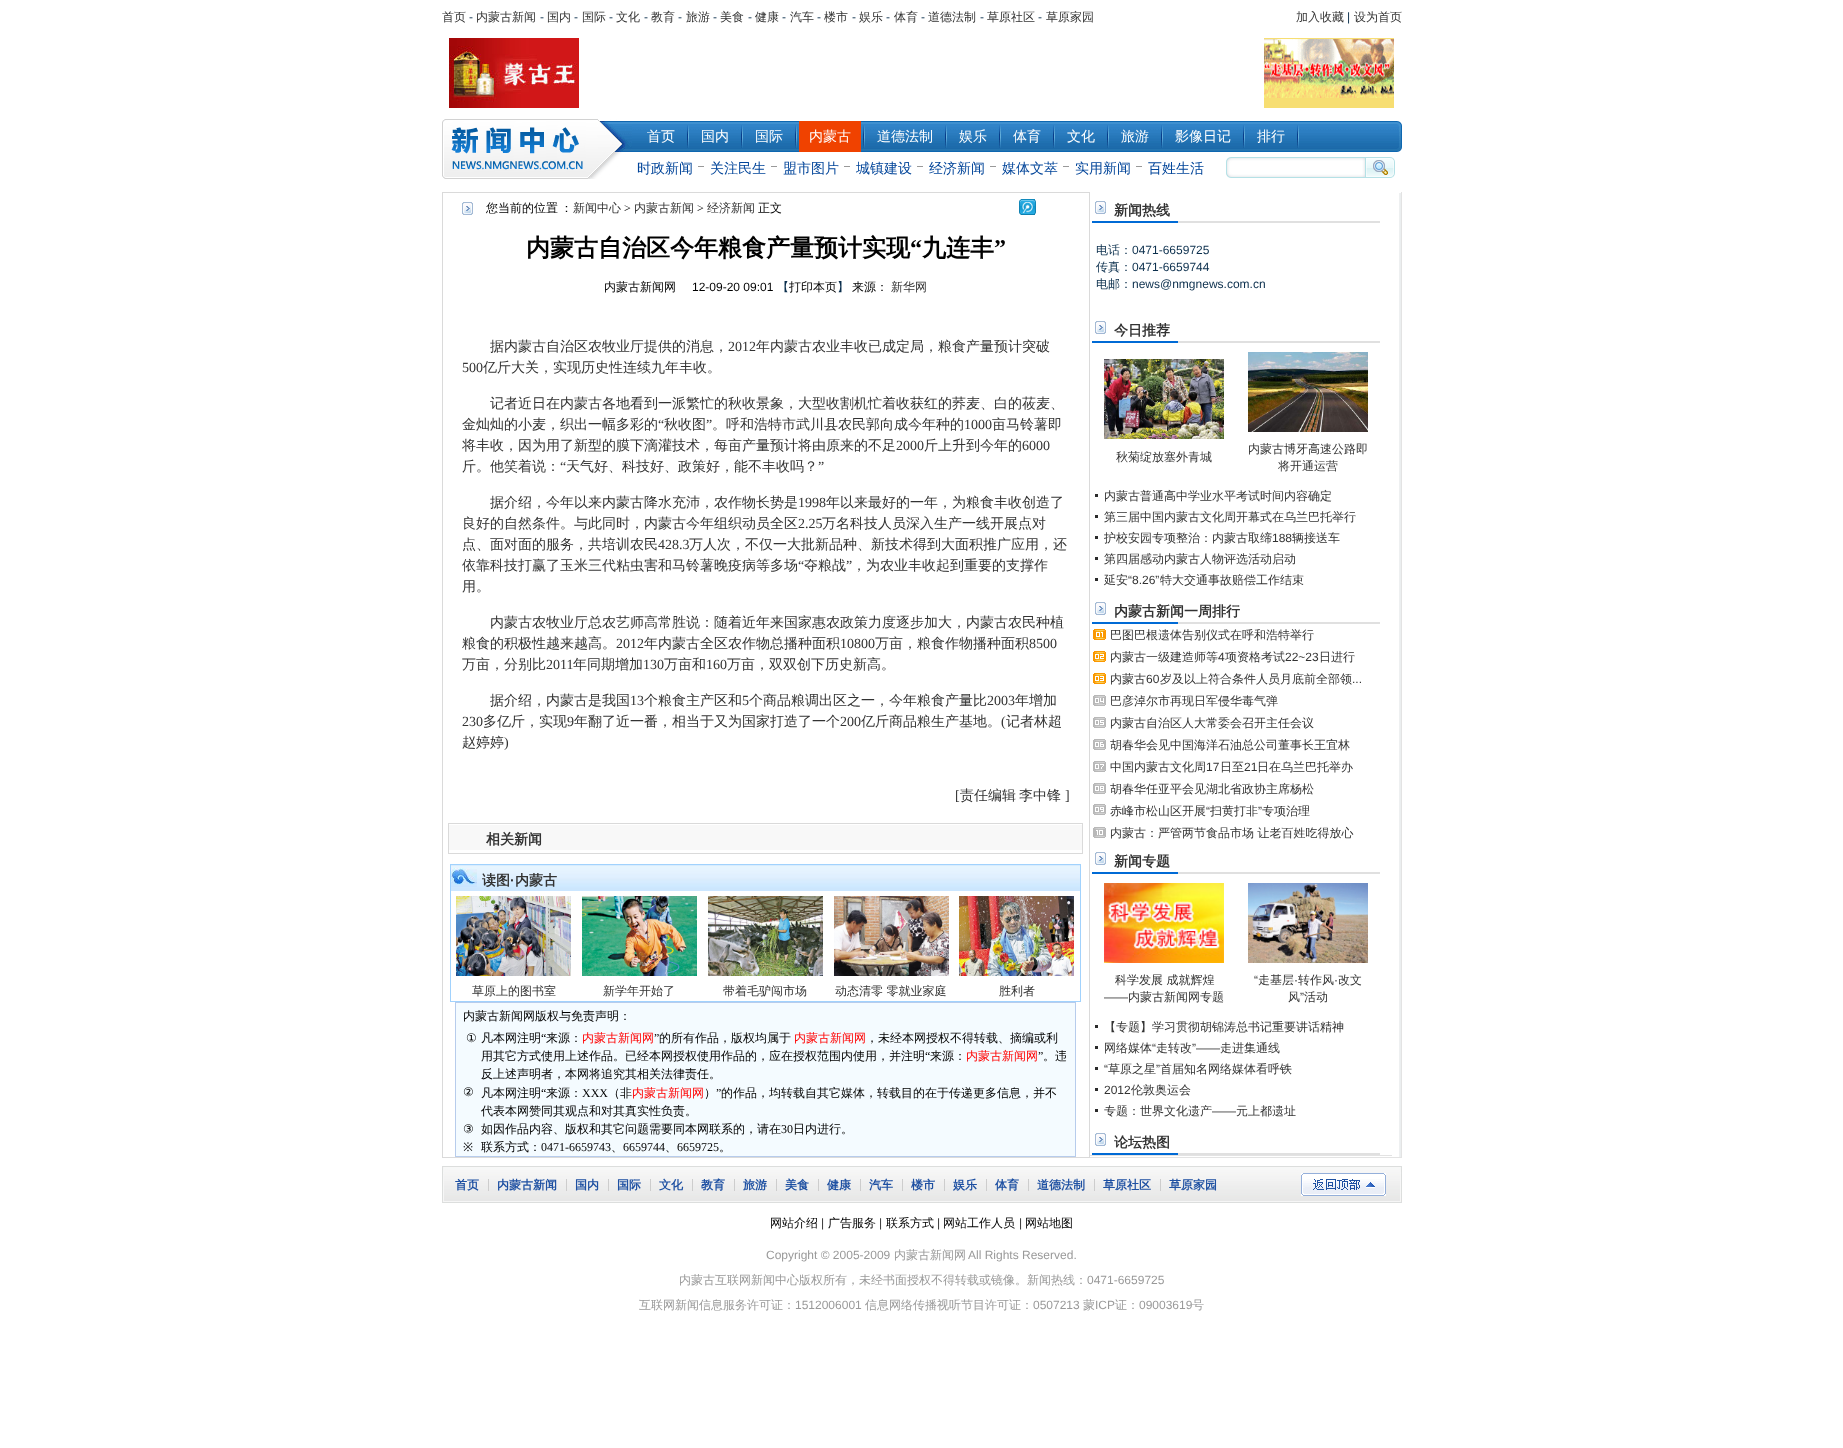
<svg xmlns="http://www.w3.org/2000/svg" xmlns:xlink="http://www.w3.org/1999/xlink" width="1843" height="1448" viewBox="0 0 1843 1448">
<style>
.cls-1{font:500 12px WenQuanYi Zen Hei;fill:#333333}
.cls-2{font:12px Liberation Sans;fill:#0b2f4d}
.cls-3{font:500 14px WenQuanYi Zen Hei;fill:#ffffff}
.cls-4{font:500 14px WenQuanYi Zen Hei;fill:#004499}
.cls-5{font:500 12px WenQuanYi Zen Hei;fill:#000000}
.cls-6{font:12px Liberation Serif;fill:#000000}
.cls-7{font:bold 24px WenQuanYi Zen Hei;fill:#000000}
.cls-8{font:bold 24px Liberation Serif;fill:#000000}
.cls-9{font:12px Liberation Sans;fill:#000000}
.cls-10{font:500 12px WenQuanYi Zen Hei;fill:#0b2f4d}
.cls-11{font:500 14px WenQuanYi Zen Hei;fill:#333333}
.cls-12{font:14px Liberation Serif;fill:#333333}
.cls-13{font:bold 14px WenQuanYi Zen Hei;fill:#333333}
.cls-14{font:bold 14px Liberation Sans;fill:#333333}
.cls-15{font:12px DejaVu Sans;fill:#000000}
.cls-16{font:500 12px WenQuanYi Zen Hei;fill:#ff0000}
.cls-17{font:12px Noto Sans;fill:#000000}
.cls-18{font:12px Liberation Sans;fill:#333333}
.cls-19{font:bold 12px WenQuanYi Zen Hei;fill:#1e50a2}
.cls-20{font:12px Liberation Sans;fill:#999999}
.cls-21{font:500 12px WenQuanYi Zen Hei;fill:#999999}
</style>
<rect width="100%" height="100%" fill="#ffffff"/>
<image xlink:href="image0.png" x="449" y="38" width="130" height="70"/>
<image xlink:href="image1.png" x="1264" y="38" width="130" height="70"/>
<image xlink:href="image2.png" x="442" y="119" width="190" height="60"/>
<image xlink:href="image3.png" x="632" y="121" width="765" height="31"/>
<image xlink:href="image4.png" x="687" y="125" width="2" height="23"/>
<image xlink:href="image4.png" x="741" y="125" width="2" height="23"/>
<image xlink:href="image4.png" x="795" y="125" width="2" height="23"/>
<rect fill="#f04200" x="799" y="121" width="62" height="31"/>
<image xlink:href="image4.png" x="863" y="125" width="2" height="23"/>
<image xlink:href="image4.png" x="945" y="125" width="2" height="23"/>
<image xlink:href="image4.png" x="999" y="125" width="2" height="23"/>
<image xlink:href="image4.png" x="1053" y="125" width="2" height="23"/>
<image xlink:href="image4.png" x="1107" y="125" width="2" height="23"/>
<image xlink:href="image4.png" x="1161" y="125" width="2" height="23"/>
<image xlink:href="image4.png" x="1243" y="125" width="2" height="23"/>
<image xlink:href="image4.png" x="1297" y="125" width="2" height="23"/>
<image xlink:href="image5.png" x="1397" y="121" width="5" height="31"/>
<rect fill="#999999" x="698" y="166" width="6" height="1"/>
<rect fill="#999999" x="771" y="166" width="6" height="1"/>
<rect fill="#999999" x="844" y="166" width="6" height="1"/>
<rect fill="#999999" x="917" y="166" width="6" height="1"/>
<rect fill="#999999" x="990" y="166" width="6" height="1"/>
<rect fill="#999999" x="1063" y="166" width="6" height="1"/>
<rect fill="#999999" x="1136" y="166" width="6" height="1"/>
<image xlink:href="image6.png" x="1226" y="157" width="139" height="21"/>
<image xlink:href="image7.png" x="1365" y="157" width="30" height="21"/>
<rect fill="#dadada" x="442" y="192" width="648" height="1"/>
<rect fill="#e3e3e3" x="1401" y="192" width="1" height="966"/>
<rect fill="#e3e3e3" x="1089" y="1157" width="313" height="1"/>
<rect fill="#dadada" x="1089" y="192" width="1" height="966"/>
<rect fill="#dadada" x="442" y="1157" width="648" height="1"/>
<rect fill="#dadada" x="442" y="192" width="1" height="966"/>
<image xlink:href="image8.png" x="462" y="202" width="11" height="13"/>
<image xlink:href="image9.png" x="1019" y="199" width="17" height="16"/>
<rect fill="#dadada" x="448" y="823" width="635" height="1"/>
<rect fill="#dadada" x="1082" y="823" width="1" height="31"/>
<rect fill="#dadada" x="448" y="853" width="635" height="1"/>
<rect fill="#dadada" x="448" y="823" width="1" height="31"/>
<rect fill="#f8f8f8" x="449" y="825" width="633" height="25"/>
<rect fill="#a1d2fd" x="450" y="864" width="631" height="1"/>
<rect fill="#a1d2fd" x="1080" y="864" width="1" height="138"/>
<rect fill="#a1d2fd" x="450" y="1001" width="631" height="1"/>
<rect fill="#a1d2fd" x="450" y="864" width="1" height="138"/>
<image xlink:href="image10.png" x="451" y="865" width="629" height="26"/>
<image xlink:href="image11.png" x="451" y="868" width="26" height="19"/>
<image xlink:href="image12.png" x="456" y="896" width="115" height="80"/>
<image xlink:href="image13.png" x="582" y="896" width="115" height="80"/>
<image xlink:href="image14.png" x="708" y="896" width="115" height="80"/>
<image xlink:href="image15.png" x="834" y="896" width="115" height="80"/>
<image xlink:href="image16.png" x="959" y="896" width="115" height="80"/>
<rect fill="#f4fbff" x="456" y="1003" width="619" height="153"/>
<rect fill="#b7ccec" x="455" y="1002" width="621" height="1"/>
<rect fill="#b7ccec" x="1075" y="1002" width="1" height="155"/>
<rect fill="#b7ccec" x="455" y="1156" width="621" height="1"/>
<rect fill="#b7ccec" x="455" y="1002" width="1" height="155"/>
<image xlink:href="image17.png" x="1090" y="193" width="311" height="964"/>
<rect fill="#e3e3e3" x="1090" y="1155" width="302" height="1"/>
<image xlink:href="image18.png" x="1092" y="221" width="288" height="2"/>
<image xlink:href="image8.png" x="1095" y="201" width="11" height="13"/>
<image xlink:href="image18.png" x="1092" y="341" width="288" height="2"/>
<image xlink:href="image8.png" x="1095" y="321" width="11" height="13"/>
<image xlink:href="image19.png" x="1104" y="359" width="120" height="80"/>
<image xlink:href="image20.png" x="1248" y="352" width="120" height="80"/>
<rect fill="#2b2b2b" x="1095" y="494" width="3" height="3"/>
<rect fill="#2b2b2b" x="1095" y="515" width="3" height="3"/>
<rect fill="#2b2b2b" x="1095" y="536" width="3" height="3"/>
<rect fill="#2b2b2b" x="1095" y="557" width="3" height="3"/>
<rect fill="#2b2b2b" x="1095" y="578" width="3" height="3"/>
<image xlink:href="image18.png" x="1092" y="622" width="288" height="2"/>
<image xlink:href="image8.png" x="1095" y="602" width="11" height="13"/>
<image xlink:href="image21.png" x="1093" y="629" width="13" height="209"/>
<image xlink:href="image18.png" x="1092" y="872" width="288" height="2"/>
<image xlink:href="image8.png" x="1095" y="852" width="11" height="13"/>
<image xlink:href="image22.png" x="1104" y="883" width="120" height="80"/>
<image xlink:href="image23.png" x="1248" y="883" width="120" height="80"/>
<rect fill="#2b2b2b" x="1095" y="1025" width="3" height="3"/>
<rect fill="#2b2b2b" x="1095" y="1046" width="3" height="3"/>
<rect fill="#2b2b2b" x="1095" y="1067" width="3" height="3"/>
<rect fill="#2b2b2b" x="1095" y="1088" width="3" height="3"/>
<rect fill="#2b2b2b" x="1095" y="1109" width="3" height="3"/>
<image xlink:href="image18.png" x="1092" y="1153" width="288" height="2"/>
<image xlink:href="image8.png" x="1095" y="1133" width="11" height="13"/>
<image xlink:href="image24.png" x="442" y="1166" width="960" height="37"/>
<image xlink:href="image25.png" x="442" y="1167" width="2" height="35"/>
<rect fill="#cdcdcd" x="488" y="1179" width="1" height="12"/>
<rect fill="#cdcdcd" x="566" y="1179" width="1" height="12"/>
<rect fill="#cdcdcd" x="608" y="1179" width="1" height="12"/>
<rect fill="#cdcdcd" x="650" y="1179" width="1" height="12"/>
<rect fill="#cdcdcd" x="692" y="1179" width="1" height="12"/>
<rect fill="#cdcdcd" x="734" y="1179" width="1" height="12"/>
<rect fill="#cdcdcd" x="776" y="1179" width="1" height="12"/>
<rect fill="#cdcdcd" x="818" y="1179" width="1" height="12"/>
<rect fill="#cdcdcd" x="860" y="1179" width="1" height="12"/>
<rect fill="#cdcdcd" x="902" y="1179" width="1" height="12"/>
<rect fill="#cdcdcd" x="944" y="1179" width="1" height="12"/>
<rect fill="#cdcdcd" x="986" y="1179" width="1" height="12"/>
<rect fill="#cdcdcd" x="1028" y="1179" width="1" height="12"/>
<rect fill="#cdcdcd" x="1094" y="1179" width="1" height="12"/>
<rect fill="#cdcdcd" x="1160" y="1179" width="1" height="12"/>
<image xlink:href="image26.png" x="1301" y="1173" width="85" height="23"/>
<image xlink:href="image27.png" x="1400" y="1167" width="2" height="35"/>
<text class="cls-1" x="442" y="21">首页</text>
<text class="cls-2" x="469" y="21">-</text>
<text class="cls-1" x="476" y="21">内蒙古新闻</text>
<text class="cls-2" x="540" y="21">-</text>
<text class="cls-1" x="547" y="21">国内</text>
<text class="cls-2" x="574" y="21">-</text>
<text class="cls-1" x="582" y="21">国际</text>
<text class="cls-2" x="609" y="21">-</text>
<text class="cls-1" x="616" y="21">文化</text>
<text class="cls-2" x="644" y="21">-</text>
<text class="cls-1" x="651" y="21">教育</text>
<text class="cls-2" x="678" y="21">-</text>
<text class="cls-1" x="686" y="21">旅游</text>
<text class="cls-2" x="713" y="21">-</text>
<text class="cls-1" x="720" y="21">美食</text>
<text class="cls-2" x="748" y="21">-</text>
<text class="cls-1" x="755" y="21">健康</text>
<text class="cls-2" x="782" y="21">-</text>
<text class="cls-1" x="790" y="21">汽车</text>
<text class="cls-2" x="817" y="21">-</text>
<text class="cls-1" x="824" y="21">楼市</text>
<text class="cls-2" x="852" y="21">-</text>
<text class="cls-1" x="859" y="21">娱乐</text>
<text class="cls-2" x="886" y="21">-</text>
<text class="cls-1" x="894" y="21">体育</text>
<text class="cls-2" x="921" y="21">-</text>
<text class="cls-1" x="928" y="21">道德法制</text>
<text class="cls-2" x="980" y="21">-</text>
<text class="cls-1" x="987" y="21">草原社区</text>
<text class="cls-2" x="1038" y="21">-</text>
<text class="cls-1" x="1046" y="21">草原家园</text>
<text class="cls-1" x="1296" y="21">加入收藏</text>
<text class="cls-2" x="1347" y="21">|</text>
<text class="cls-1" x="1354" y="21">设为首页</text>
<text class="cls-3" x="647" y="141">首页</text>
<text class="cls-3" x="701" y="141">国内</text>
<text class="cls-3" x="755" y="141">国际</text>
<text class="cls-3" x="809" y="141">内蒙古</text>
<text class="cls-3" x="877" y="141">道德法制</text>
<text class="cls-3" x="959" y="141">娱乐</text>
<text class="cls-3" x="1013" y="141">体育</text>
<text class="cls-3" x="1067" y="141">文化</text>
<text class="cls-3" x="1121" y="141">旅游</text>
<text class="cls-3" x="1175" y="141">影像日记</text>
<text class="cls-3" x="1257" y="141">排行</text>
<text class="cls-4" x="637" y="173">时政新闻</text>
<text class="cls-4" x="710" y="173">关注民生</text>
<text class="cls-4" x="783" y="173">盟市图片</text>
<text class="cls-4" x="856" y="173">城镇建设</text>
<text class="cls-4" x="929" y="173">经济新闻</text>
<text class="cls-4" x="1002" y="173">媒体文萃</text>
<text class="cls-4" x="1075" y="173">实用新闻</text>
<text class="cls-4" x="1148" y="173">百姓生活</text>
<text class="cls-5" x="486" y="212" word-spacing="-1">您当前的位置 ：</text>
<text class="cls-1" x="573" y="212">新闻中心</text>
<text class="cls-6" x="624" y="212">&gt;</text>
<text class="cls-1" x="634" y="212">内蒙古新闻</text>
<text class="cls-6" x="697" y="212">&gt;</text>
<text class="cls-1" x="707" y="212">经济新闻</text>
<text class="cls-5" x="758" y="212">正文</text>
<text class="cls-7" x="526" y="256">内蒙古自治区今年粮食产量预计实现</text>
<text class="cls-8" x="910" y="256">“</text>
<text class="cls-7" x="922" y="256">九连丰</text>
<text class="cls-8" x="994" y="256">”</text>
<text class="cls-5" x="604" y="291">内蒙古新闻网</text>
<text class="cls-9" x="692" y="291">12-09-20 09:01</text>
<text class="cls-10" x="777" y="291">【</text>
<text class="cls-5" x="789" y="291">打印本页</text>
<text class="cls-10" x="837" y="291">】</text>
<text class="cls-5" x="852" y="291">来源：</text>
<text class="cls-1" x="891" y="291">新华网</text>
<text class="cls-11" x="490" y="351">据内蒙古自治区农牧业厅提供的消息，</text>
<text class="cls-12" x="728" y="351">2012</text>
<text class="cls-11" x="756" y="351">年内蒙古农业丰收已成定局，粮食产量预计突破</text>
<text class="cls-12" x="462" y="372">500</text>
<text class="cls-11" x="483" y="372">亿斤大关，实现历史性连续九年丰收。</text>
<text class="cls-11" x="490" y="408">记者近日在内蒙古各地看到一派繁忙的秋收景象，大型收割机忙着收获红的荞麦、白的莜麦、</text>
<text class="cls-11" x="462" y="429">金灿灿的小麦，织出一幅多彩的</text>
<text class="cls-12" x="658" y="429">“</text>
<text class="cls-11" x="664" y="429">秋收图</text>
<text class="cls-12" x="706" y="429">”</text>
<text class="cls-11" x="712" y="429">。呼和浩特市武川县农民郭向成今年种的</text>
<text class="cls-12" x="964" y="429">1000</text>
<text class="cls-11" x="992" y="429">亩马铃薯即</text>
<text class="cls-11" x="462" y="450">将丰收，因为用了新型的膜下滴灌技术，每亩产量预计将由原来的不足</text>
<text class="cls-12" x="896" y="450">2000</text>
<text class="cls-11" x="924" y="450">斤上升到今年的</text>
<text class="cls-12" x="1022" y="450">6000</text>
<text class="cls-11" x="462" y="471">斤。他笑着说：</text>
<text class="cls-12" x="560" y="471">“</text>
<text class="cls-11" x="566" y="471">天气好、科技好、政策好，能不丰收吗？</text>
<text class="cls-12" x="818" y="471">”</text>
<text class="cls-11" x="490" y="507">据介绍，今年以来内蒙古降水充沛，农作物长势是</text>
<text class="cls-12" x="798" y="507">1998</text>
<text class="cls-11" x="826" y="507">年以来最好的一年，为粮食丰收创造了</text>
<text class="cls-11" x="462" y="528">良好的自然条件。与此同时，内蒙古今年组织动员全区</text>
<text class="cls-12" x="798" y="528">2.25</text>
<text class="cls-11" x="822" y="528">万名科技人员深入生产一线开展点对</text>
<text class="cls-11" x="462" y="549">点、面对面的服务，共培训农民</text>
<text class="cls-12" x="658" y="549">428.3</text>
<text class="cls-11" x="689" y="549">万人次，不仅一大批新品种、新技术得到大面积推广应用，还</text>
<text class="cls-11" x="462" y="570">依靠科技打赢了玉米三代粘虫害和马铃薯晚疫病等多场</text>
<text class="cls-12" x="798" y="570">“</text>
<text class="cls-11" x="804" y="570">夺粮战</text>
<text class="cls-12" x="846" y="570">”</text>
<text class="cls-11" x="852" y="570">，为农业丰收起到重要的支撑作</text>
<text class="cls-11" x="462" y="591">用。</text>
<text class="cls-11" x="490" y="627">内蒙古农牧业厅总农艺师高常胜说：随着近年来国家惠农政策力度逐步加大，内蒙古农民种植</text>
<text class="cls-11" x="462" y="648">粮食的积极性越来越高。</text>
<text class="cls-12" x="616" y="648">2012</text>
<text class="cls-11" x="644" y="648">年内蒙古全区农作物总播种面积</text>
<text class="cls-12" x="840" y="648">10800</text>
<text class="cls-11" x="875" y="648">万亩，粮食作物播种面积</text>
<text class="cls-12" x="1029" y="648">8500</text>
<text class="cls-11" x="462" y="669">万亩，分别比</text>
<text class="cls-12" x="546" y="669">2011</text>
<text class="cls-11" x="573" y="669">年同期增加</text>
<text class="cls-12" x="643" y="669">130</text>
<text class="cls-11" x="664" y="669">万亩和</text>
<text class="cls-12" x="706" y="669">160</text>
<text class="cls-11" x="727" y="669">万亩，双双创下历史新高。</text>
<text class="cls-11" x="490" y="705">据介绍，内蒙古是我国</text>
<text class="cls-12" x="630" y="705">13</text>
<text class="cls-11" x="644" y="705">个粮食主产区和</text>
<text class="cls-12" x="742" y="705">5</text>
<text class="cls-11" x="749" y="705">个商品粮调出区之一，今年粮食产量比</text>
<text class="cls-12" x="987" y="705">2003</text>
<text class="cls-11" x="1015" y="705">年增加</text>
<text class="cls-12" x="462" y="726">230</text>
<text class="cls-11" x="483" y="726">多亿斤，实现</text>
<text class="cls-12" x="567" y="726">9</text>
<text class="cls-11" x="574" y="726">年翻了近一番，相当于又为国家打造了一个</text>
<text class="cls-12" x="840" y="726">200</text>
<text class="cls-11" x="861" y="726">亿斤商品粮生产基地。</text>
<text class="cls-12" x="1001" y="726">(</text>
<text class="cls-11" x="1006" y="726">记者林超</text>
<text class="cls-11" x="462" y="747">赵婷婷</text>
<text class="cls-12" x="504" y="747">)</text>
<text class="cls-12" x="955" y="800">[</text>
<text class="cls-11" x="960" y="800">责任编辑</text>
<text class="cls-11" x="1019" y="800">李中锋</text>
<text class="cls-12" x="1065" y="800">]</text>
<text class="cls-13" x="486" y="844">相关新闻</text>
<text class="cls-13" x="482" y="885">读图</text>
<text class="cls-14" x="510" y="885">·</text>
<text class="cls-13" x="515" y="885">内蒙古</text>
<text class="cls-1" x="472" y="995">草原上的图书室</text>
<text class="cls-1" x="603" y="995">新学年开始了</text>
<text class="cls-1" x="723" y="995">带着毛驴闯市场</text>
<text class="cls-1" x="835" y="995">动态清零 零就业家庭</text>
<text class="cls-1" x="999" y="995">胜利者</text>
<text class="cls-5" x="463" y="1020">内蒙古新闻网版权与免责声明：</text>
<text class="cls-15" x="466" y="1042">①</text>
<text class="cls-5" x="481" y="1042">凡本网注明</text>
<text class="cls-6" x="541" y="1042">“</text>
<text class="cls-5" x="546" y="1042">来源：</text>
<text class="cls-16" x="582" y="1042">内蒙古新闻网</text>
<text class="cls-6" x="654" y="1042">”</text>
<text class="cls-5" x="659" y="1042">的所有作品，版权均属于</text>
<text class="cls-16" x="794" y="1042">内蒙古新闻网</text>
<text class="cls-5" x="866" y="1042">，未经本网授权不得转载、摘编或利</text>
<text class="cls-5" x="481" y="1060">用其它方式使用上述作品。已经本网授权使用作品的，应在授权范围内使用，并注明</text>
<text class="cls-6" x="925" y="1060">“</text>
<text class="cls-5" x="930" y="1060">来源：</text>
<text class="cls-16" x="966" y="1060">内蒙古新闻网</text>
<text class="cls-6" x="1038" y="1060">”</text>
<text class="cls-5" x="1043" y="1060">。违</text>
<text class="cls-5" x="481" y="1078">反上述声明者，本网将追究其相关法律责任。</text>
<text class="cls-15" x="463" y="1096">②</text>
<text class="cls-5" x="481" y="1097">凡本网注明</text>
<text class="cls-6" x="541" y="1097">“</text>
<text class="cls-5" x="546" y="1097">来源：</text>
<text class="cls-6" x="582" y="1097">XXX</text>
<text class="cls-5" x="608" y="1097">（非</text>
<text class="cls-16" x="632" y="1097">内蒙古新闻网</text>
<text class="cls-5" x="704" y="1097">）</text>
<text class="cls-6" x="716" y="1097">”</text>
<text class="cls-5" x="721" y="1097">的作品，均转载自其它媒体，转载目的在于传递更多信息，并不</text>
<text class="cls-5" x="481" y="1115">代表本网赞同其观点和对其真实性负责。</text>
<text class="cls-15" x="463" y="1133">③</text>
<text class="cls-5" x="481" y="1133">如因作品内容、版权和其它问题需要同本网联系的，请在</text>
<text class="cls-6" x="781" y="1133">30</text>
<text class="cls-5" x="793" y="1133">日内进行。</text>
<text class="cls-17" x="463" y="1151">※</text>
<text class="cls-5" x="481" y="1151">联系方式：</text>
<text class="cls-6" x="541" y="1151">0471-6659743</text>
<text class="cls-5" x="611" y="1151">、</text>
<text class="cls-6" x="623" y="1151">6659744</text>
<text class="cls-5" x="665" y="1151">、</text>
<text class="cls-6" x="677" y="1151">6659725</text>
<text class="cls-5" x="719" y="1151">。</text>
<text class="cls-13" x="1114" y="215">新闻热线</text>
<text class="cls-10" x="1096" y="254">电话：</text>
<text class="cls-2" x="1132" y="254">0471-6659725</text>
<text class="cls-10" x="1096" y="271">传真：</text>
<text class="cls-2" x="1132" y="271">0471-6659744</text>
<text class="cls-10" x="1096" y="288">电邮：</text>
<text class="cls-2" x="1132" y="288">news@nmgnews.com.cn</text>
<text class="cls-13" x="1114" y="335">今日推荐</text>
<text class="cls-1" x="1116" y="461">秋菊绽放塞外青城</text>
<text class="cls-1" x="1248" y="453">内蒙古博牙高速公路即</text>
<text class="cls-1" x="1278" y="470">将开通运营</text>
<text class="cls-1"><tspan x="1104" y="500">内蒙古普通高中学业水平考试时间内容确定</tspan><tspan x="1104" y="521">第三届中国内蒙古文化周开幕式在乌兰巴托举行</tspan><tspan x="1104" y="542">护校安园专项整治：内蒙古取缔</tspan></text>
<text class="cls-18" x="1272" y="542">188</text>
<text class="cls-1" x="1292" y="542">辆接送车</text>
<text class="cls-1"><tspan x="1104" y="563">第四届感动内蒙古人物评选活动启动</tspan><tspan x="1104" y="584">延安</tspan></text>
<text class="cls-18" x="1128" y="584">“8.26”</text>
<text class="cls-1" x="1160" y="584">特大交通事故赔偿工作结束</text>
<text class="cls-13" x="1114" y="616">内蒙古新闻一周排行</text>
<text class="cls-1"><tspan x="1110" y="639">巴图巴根遗体告别仪式在呼和浩特举行</tspan><tspan x="1110" y="661">内蒙古一级建造师等</tspan></text>
<text class="cls-18" x="1218" y="661">4</text>
<text class="cls-1" x="1225" y="661">项资格考试</text>
<text class="cls-18" x="1285" y="661">22~23</text>
<text class="cls-1" x="1319" y="661">日进行</text>
<text class="cls-1" x="1110" y="683">内蒙古</text>
<text class="cls-18" x="1146" y="683">60</text>
<text class="cls-1" x="1160" y="683">岁及以上符合条件人员月底前全部领</text>
<text class="cls-18" x="1352" y="683">...</text>
<text class="cls-1"><tspan x="1110" y="705">巴彦淖尔市再现日军侵华毒气弹</tspan><tspan x="1110" y="727">内蒙古自治区人大常委会召开主任会议</tspan><tspan x="1110" y="749">胡春华会见中国海洋石油总公司董事长王宜林</tspan><tspan x="1110" y="771">中国内蒙古文化周</tspan></text>
<text class="cls-18" x="1206" y="771">17</text>
<text class="cls-1" x="1220" y="771">日至</text>
<text class="cls-18" x="1244" y="771">21</text>
<text class="cls-1" x="1257" y="771">日在乌兰巴托举办</text>
<text class="cls-1"><tspan x="1110" y="793">胡春华任亚平会见湖北省政协主席杨松</tspan><tspan x="1110" y="815">赤峰市松山区开展</tspan></text>
<text class="cls-18" x="1206" y="815">“</text>
<text class="cls-1" x="1210" y="815">扫黄打非</text>
<text class="cls-18" x="1258" y="815">”</text>
<text class="cls-1" x="1262" y="815">专项治理</text>
<text class="cls-1" x="1110" y="837">内蒙古：严管两节食品市场 让老百姓吃得放心</text>
<text class="cls-13" x="1114" y="866">新闻专题</text>
<text class="cls-1" x="1115" y="984">科学发展 成就辉煌</text>
<text class="cls-18" x="1104" y="1001">——</text>
<text class="cls-1" x="1128" y="1001">内蒙古新闻网专题</text>
<text class="cls-18" x="1254" y="984">“</text>
<text class="cls-1" x="1258" y="984">走基层</text>
<text class="cls-1" x="1298" y="984">转作风</text>
<text class="cls-1" x="1338" y="984">改文</text>
<text class="cls-18" x="1294" y="984">·</text>
<text class="cls-18" x="1334" y="984">·</text>
<text class="cls-1" x="1288" y="1001">风</text>
<text class="cls-18" x="1300" y="1001">”</text>
<text class="cls-1" x="1304" y="1001">活动</text>
<text class="cls-1"><tspan x="1104" y="1031">【专题】学习贯彻胡锦涛总书记重要讲话精神</tspan><tspan x="1104" y="1052">网络媒体</tspan></text>
<text class="cls-18" x="1152" y="1052">“</text>
<text class="cls-1" x="1156" y="1052">走转改</text>
<text class="cls-18" x="1192" y="1052">”——</text>
<text class="cls-1" x="1220" y="1052">走进集通线</text>
<text class="cls-18" x="1104" y="1073">“</text>
<text class="cls-1" x="1108" y="1073">草原之星</text>
<text class="cls-18" x="1156" y="1073">”</text>
<text class="cls-1" x="1160" y="1073">首届知名网络媒体看呼铁</text>
<text class="cls-18" x="1104" y="1094">2012</text>
<text class="cls-1" x="1131" y="1094">伦敦奥运会</text>
<text class="cls-1" x="1104" y="1115">专题：世界文化遗产</text>
<text class="cls-18" x="1212" y="1115">——</text>
<text class="cls-1" x="1236" y="1115">元上都遗址</text>
<text class="cls-13" x="1114" y="1147">论坛热图</text>
<text class="cls-19" x="455" y="1189">首页</text>
<text class="cls-19" x="497" y="1189">内蒙古新闻</text>
<text class="cls-19" x="575" y="1189">国内</text>
<text class="cls-19" x="617" y="1189">国际</text>
<text class="cls-19" x="659" y="1189">文化</text>
<text class="cls-19" x="701" y="1189">教育</text>
<text class="cls-19" x="743" y="1189">旅游</text>
<text class="cls-19" x="785" y="1189">美食</text>
<text class="cls-19" x="827" y="1189">健康</text>
<text class="cls-19" x="869" y="1189">汽车</text>
<text class="cls-19" x="911" y="1189">楼市</text>
<text class="cls-19" x="953" y="1189">娱乐</text>
<text class="cls-19" x="995" y="1189">体育</text>
<text class="cls-19" x="1037" y="1189">道德法制</text>
<text class="cls-19" x="1103" y="1189">草原社区</text>
<text class="cls-19" x="1169" y="1189">草原家园</text>
<text class="cls-5" x="770" y="1227">网站介绍</text>
<text class="cls-18" x="821" y="1227">|</text>
<text class="cls-5" x="828" y="1227">广告服务</text>
<text class="cls-18" x="879" y="1227">|</text>
<text class="cls-5" x="886" y="1227">联系方式</text>
<text class="cls-18" x="937" y="1227">|</text>
<text class="cls-5" x="943" y="1227">网站工作人员</text>
<text class="cls-18" x="1019" y="1227">|</text>
<text class="cls-5" x="1025" y="1227">网站地图</text>
<text class="cls-20" x="766" y="1259">Copyright © 2005-2009</text>
<text class="cls-21" x="894" y="1259">内蒙古新闻网</text>
<text class="cls-20" x="968" y="1259">All Rights Reserved.</text>
<text class="cls-21" x="679" y="1284">内蒙古互联网新闻中心版权所有，未经书面授权不得转载或镜像。新闻热线：</text>
<text class="cls-20" x="1087" y="1284">0471-6659725</text>
<text class="cls-21" x="639" y="1309">互联网新闻信息服务许可证：</text>
<text class="cls-20" x="795" y="1309">1512006001</text>
<text class="cls-21" x="865" y="1309">信息网络传播视听节目许可证：</text>
<text class="cls-20" x="1033" y="1309">0507213</text>
<text class="cls-21" x="1083" y="1309">蒙</text>
<text class="cls-20" x="1095" y="1309">ICP</text>
<text class="cls-21" x="1115" y="1309">证：</text>
<text class="cls-20" x="1139" y="1309">09003619</text>
<text class="cls-21" x="1192" y="1309">号</text>
</svg>
